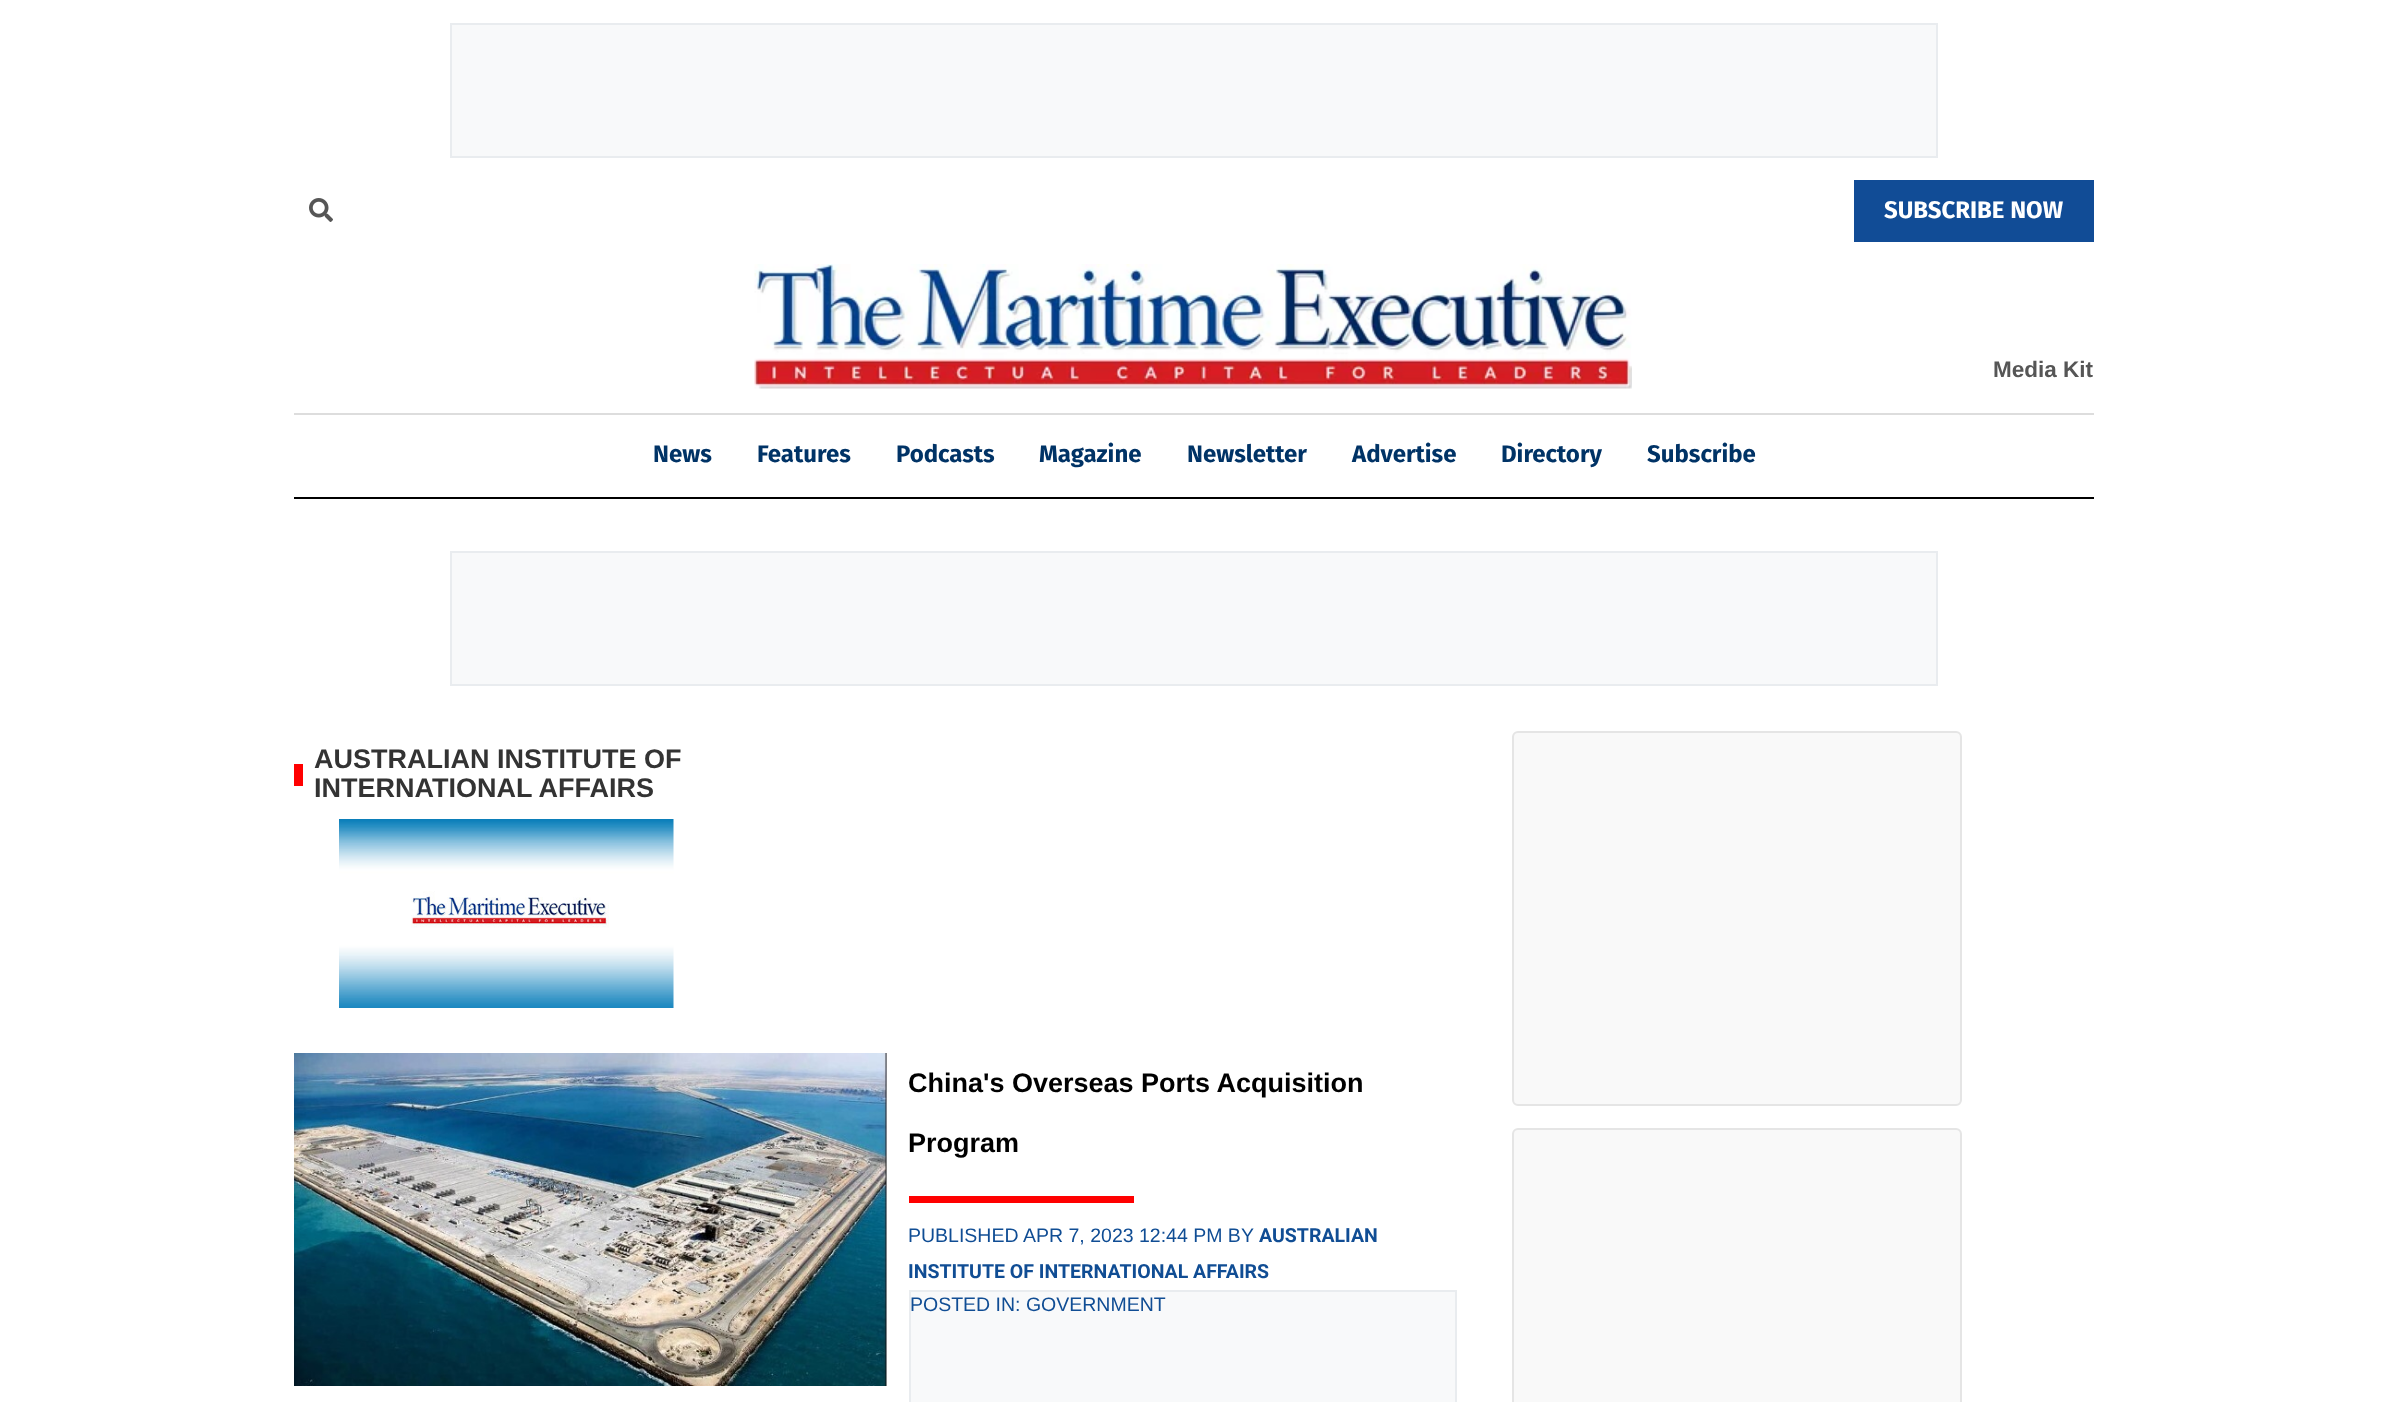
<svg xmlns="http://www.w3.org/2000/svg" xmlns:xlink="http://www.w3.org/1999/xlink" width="2386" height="1402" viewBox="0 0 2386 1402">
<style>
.cls-1{font:bold 24px Fira Sans;fill:#ffffff}
.cls-2{font:bold 22.5px Liberation Sans;fill:#565656}
.cls-3{font:bold 24px Fira Sans;fill:#003366}
.cls-4{font:bold 27px Liberation Sans;fill:#333333}
.cls-5{font:bold 27px Liberation Sans;fill:#000000}
.cls-6{font:19.5px Liberation Sans;fill:#104d94}
.cls-7{font:bold 19.5px Roboto;fill:#104d94}
</style>
<rect width="100%" height="100%" fill="#ffffff"/>
<rect fill="#f8f9fa" stroke="#e9ecef" stroke-width="2" x="451" y="24" width="1486" height="133"/>
<image xlink:href="image0.png" x="309" y="198" width="24" height="24"/>
<rect fill="#114c96" x="1854" y="180" width="240" height="62"/>
<image xlink:href="image1.png" x="754" y="264" width="878" height="125"/>
<rect fill="#dddddd" x="294" y="413" width="1800" height="2"/>
<rect fill="#000000" x="294" y="497" width="1800" height="2"/>
<rect fill="#f8f9fa" stroke="#e9ecef" stroke-width="2" x="451" y="552" width="1486" height="133"/>
<rect fill="#ff0000" x="294" y="764" width="9" height="22"/>
<image xlink:href="image2.png" x="339" y="819" width="335" height="189"/>
<image xlink:href="image3.png" x="294" y="1053" width="593" height="333"/>
<rect fill="#ff0000" x="909" y="1196" width="225" height="7"/>
<rect fill="#f8f9fa" stroke="#e9ecef" stroke-width="2" x="910" y="1291" width="546" height="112"/>
<rect fill="#f9f9f9" stroke="#e5e5e5" stroke-width="2" x="1513" y="732" width="448" height="373" rx="5"/>
<rect fill="#f9f9f9" stroke="#e5e5e5" stroke-width="2" x="1513" y="1129" width="448" height="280" rx="5"/>
<text class="cls-1" x="1884" y="218">SUBSCRIBE NOW</text>
<text class="cls-2" x="1993" y="377">Media Kit</text>
<text class="cls-3" x="653" y="462">News</text>
<text class="cls-3" x="757" y="462">Features</text>
<text class="cls-3" x="896" y="462">Podcasts</text>
<text class="cls-3" x="1039" y="462">Magazine</text>
<text class="cls-3" x="1187" y="462">Newsletter</text>
<text class="cls-3" x="1352" y="462">Advertise</text>
<text class="cls-3" x="1501" y="462">Directory</text>
<text class="cls-3" x="1647" y="462">Subscribe</text>
<text class="cls-4"><tspan x="314" y="768">AUSTRALIAN INSTITUTE OF</tspan><tspan x="314" y="797">INTERNATIONAL AFFAIRS</tspan></text>
<text class="cls-5" x="908" y="1092">China's Overseas Ports Acquisition</text>
<text class="cls-5" x="908" y="1152">Program</text>
<text class="cls-6" x="908" y="1242">PUBLISHED</text>
<text class="cls-6" x="1023" y="1242">APR 7, 2023 12:44 PM BY</text>
<text class="cls-7" x="1259" y="1242">AUSTRALIAN</text>
<text class="cls-7" x="908" y="1278">INSTITUTE OF INTERNATIONAL AFFAIRS</text>
<text class="cls-6" x="910" y="1311">POSTED IN: GOVERNMENT</text>
</svg>
